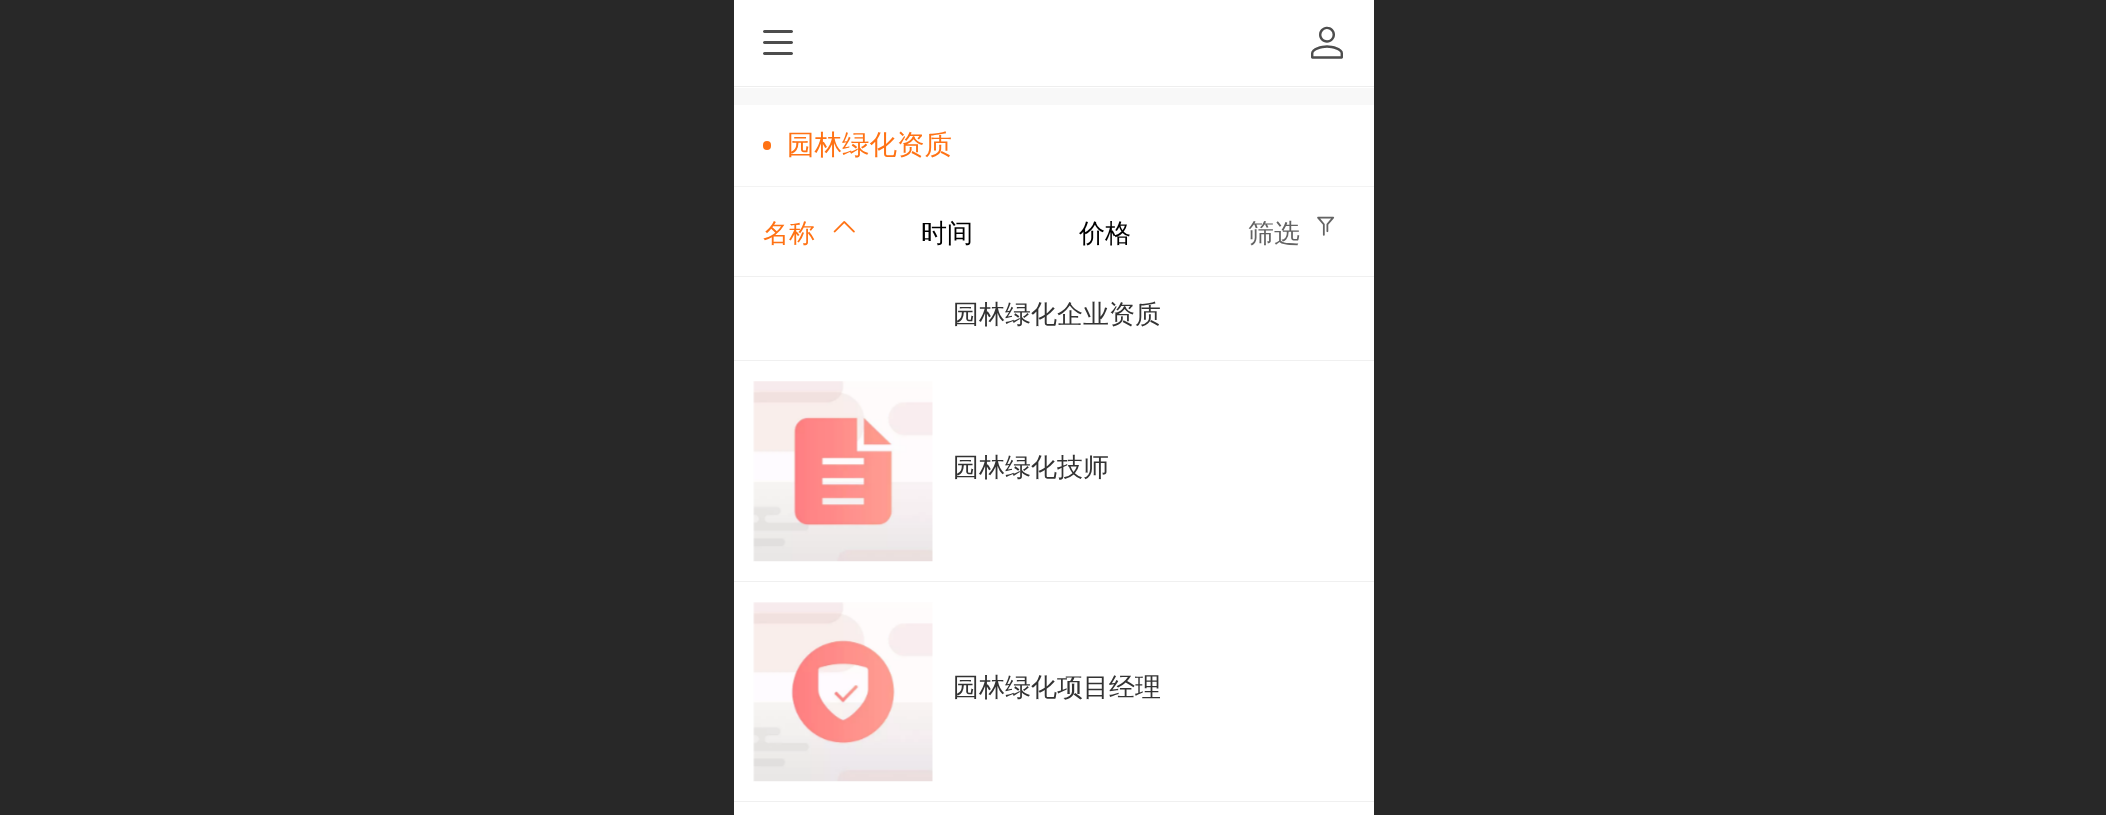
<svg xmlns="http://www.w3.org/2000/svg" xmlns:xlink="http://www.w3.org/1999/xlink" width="2106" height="815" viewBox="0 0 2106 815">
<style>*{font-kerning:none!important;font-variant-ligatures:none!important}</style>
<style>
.cls-1{font:30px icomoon;fill:#4d4d4d}
.cls-2{font:32px icomoon;fill:#4d4d4d}
.cls-3{font:500 27.5px WenQuanYi Zen Hei;fill:#ff7214}
.cls-4{font:500 26px WenQuanYi Zen Hei;fill:#ff7214}
.cls-5{font:500 26px WenQuanYi Zen Hei;fill:#000000}
.cls-6{font:500 26px WenQuanYi Zen Hei;fill:#636363}
.cls-7{font:500 26px WenQuanYi Zen Hei;fill:#333333}
</style>
<rect width="100%" height="100%" fill="#f8f8f8"/>
<rect fill="#282828" x="0" y="0" width="734" height="815"/>
<rect fill="#ffffff" x="734" y="0" width="640" height="88"/>
<rect fill="#eeeeee" x="734" y="86" width="640" height="1"/>
<rect fill="#ffffff" x="734" y="105" width="640" height="710"/>
<rect fill="#f3f3f3" x="734" y="186" width="640" height="1"/>
<rect fill="#ff7214" x="763" y="141" width="8" height="9" rx="4"/>
<image xlink:href="image0.png" x="833" y="221" width="22" height="12"/>
<image xlink:href="image1.png" x="1317" y="216" width="18" height="20"/>
<rect fill="#f0f0f0" x="734" y="276" width="640" height="1"/>
<rect fill="#f0f0f0" x="734" y="360" width="640" height="1"/>
<image xlink:href="image2.png" x="753" y="381" width="180" height="181"/>
<rect fill="#f0f0f0" x="734" y="581" width="640" height="1"/>
<image xlink:href="image3.png" x="753" y="602" width="180" height="180"/>
<rect fill="#f0f0f0" x="734" y="801" width="640" height="1"/>
<rect fill="#282828" x="1374" y="0" width="732" height="815"/>
<text class="cls-1" x="763" y="55">򰌲</text>
<text class="cls-2" x="1311" y="56">򰊈</text>
<text class="cls-3" x="787" y="154">园林绿化资质</text>
<text class="cls-4" x="763" y="242">名称</text>
<text class="cls-5" x="921" y="242">时间</text>
<text class="cls-5" x="1079" y="242">价格</text>
<text class="cls-6" x="1248" y="242">筛选</text>
<text class="cls-7" x="953" y="323">园林绿化企业资质</text>
<text class="cls-7" x="953" y="476">园林绿化技师</text>
<text class="cls-7" x="953" y="696">园林绿化项目经理</text>
</svg>
